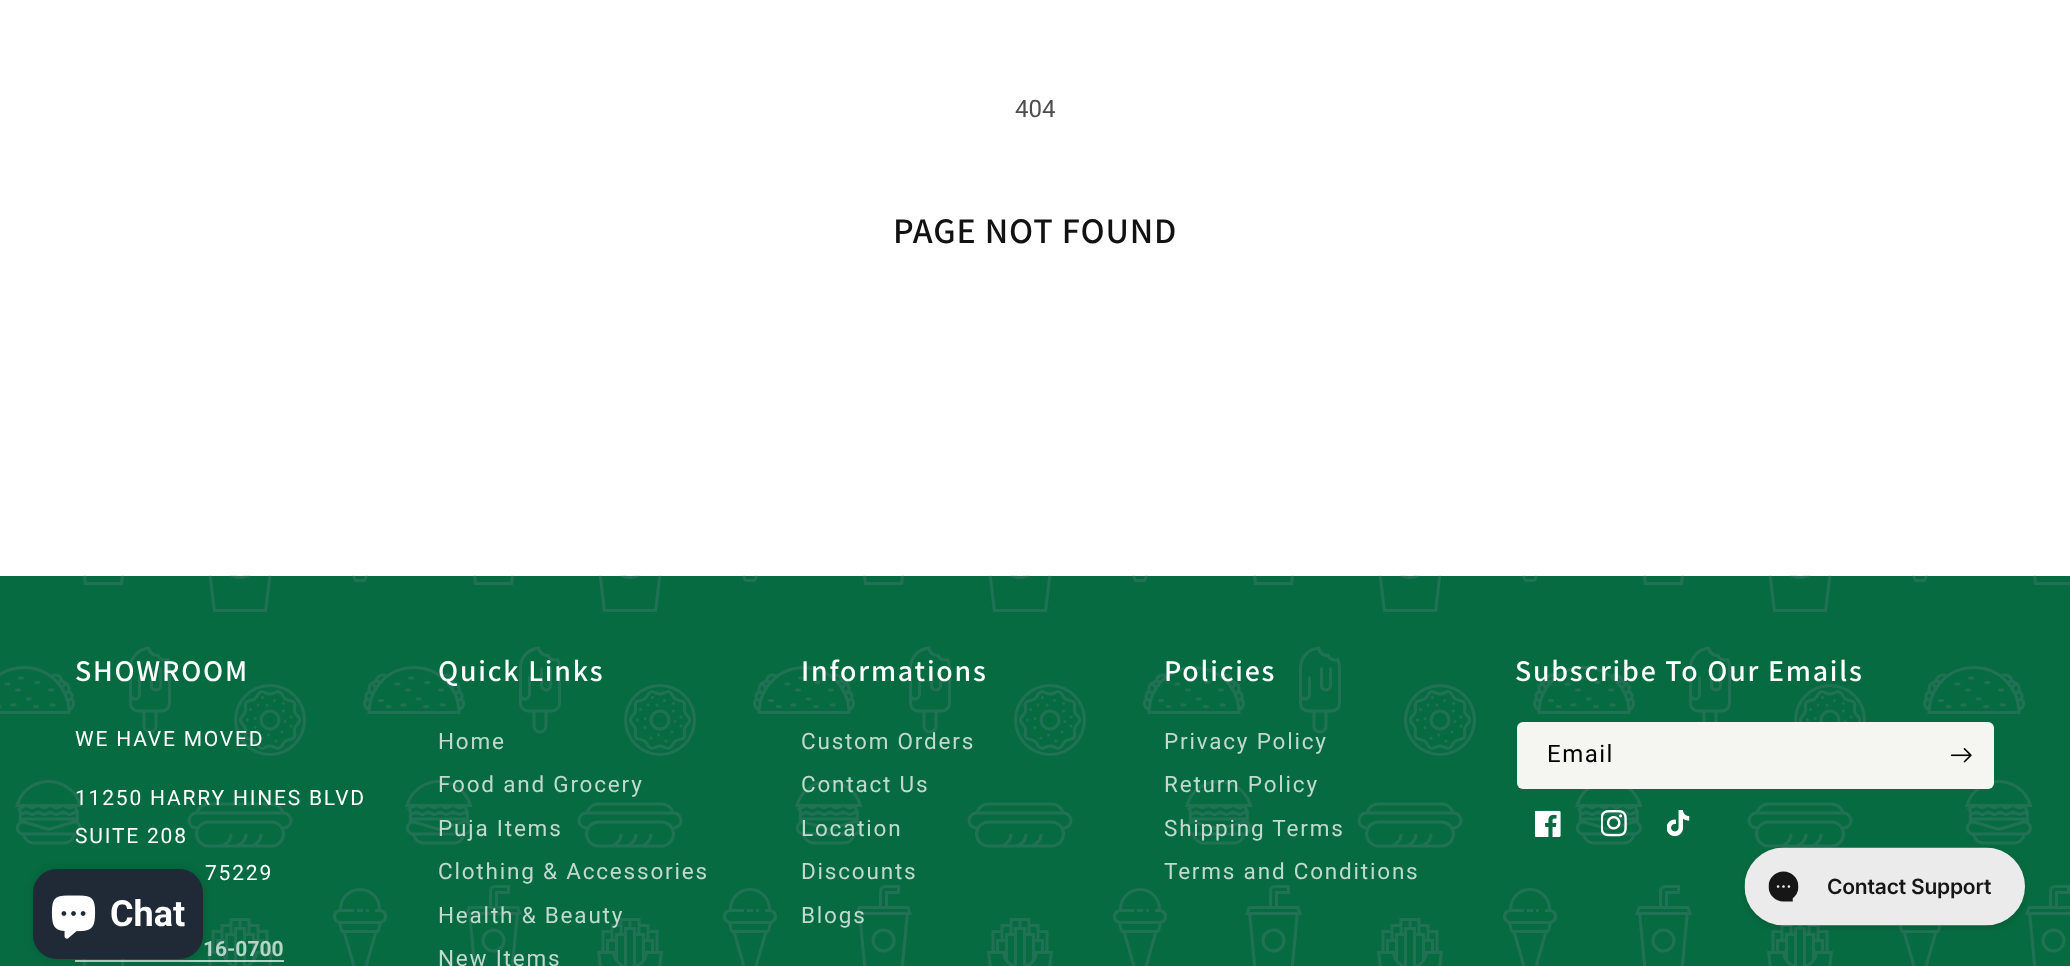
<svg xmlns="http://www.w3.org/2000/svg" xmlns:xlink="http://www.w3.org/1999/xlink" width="2070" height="966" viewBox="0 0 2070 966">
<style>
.cls-1{font:24px Roboto;fill:#4d4d4d}
.cls-2{font:600 36px Assistant;letter-spacing:0.9px;fill:#121212}
.cls-3{font:600 30px Assistant;letter-spacing:1.8px;fill:#ffffff}
.cls-4{font:21px Roboto;letter-spacing:1.8px;fill:#ffffff}
.cls-5{font:bold 21px Roboto;fill:#b6d3c7}
.cls-6{font:22.5px Roboto;letter-spacing:1.8px;fill:#c1dad0}
.cls-7{font:24px Roboto;letter-spacing:1.5px;fill:#000000}
.cls-8{font:bold 36px Roboto;fill:#ffffff}
</style>
<rect width="100%" height="100%" fill="#ffffff"/>
<rect fill="#076b41" x="0" y="576" width="2070" height="390"/>
<image xlink:href="image0.png" x="0" y="575" width="2070" height="391"/>
<rect fill="#ffffff" fill-opacity="0.7" x="75" y="960" width="209" height="2"/>
<rect fill="#f5f5f1" x="1517" y="722" width="477" height="67" rx="6"/>
<image xlink:href="image1.png" x="1950" y="748" width="22" height="15"/>
<image xlink:href="image2.png" x="1535" y="810" width="26" height="27"/>
<image xlink:href="image3.png" x="1601" y="810" width="26" height="27"/>
<image xlink:href="image4.png" x="1667" y="810" width="23" height="27"/>
<image xlink:href="image5.png" x="1742" y="847" width="285" height="84"/>
<rect fill="#000000" fill-opacity="0.15" filter="blur(4px)" x="33" y="869" width="170" height="90" rx="24"/>
<rect fill="#202a36" x="33" y="869" width="170" height="90" rx="24"/>
<image xlink:href="image6.png" x="51" y="895" width="45" height="44"/>
<text class="cls-1" x="1015" y="117">404</text>
<text class="cls-2" x="893" y="243">PAGE NOT FOUND</text>
<text class="cls-3" x="75" y="681">SHOWROOM</text>
<text class="cls-4" x="75" y="746">WE HAVE MOVED</text>
<text class="cls-4"><tspan x="75" y="805">11250 HARRY HINES BLVD</tspan><tspan x="75" y="843">SUITE 208</tspan></text>
<text class="cls-4" x="205" y="880">75229</text>
<text class="cls-5" x="203" y="956">16-0700</text>
<text class="cls-3" x="438" y="681">Quick Links</text>
<text class="cls-6"><tspan x="438" y="749">Home</tspan><tspan x="438" y="792">Food and Grocery</tspan><tspan x="438" y="836">Puja Items</tspan><tspan x="438" y="879">Clothing &amp; Accessories</tspan><tspan x="438" y="923">Health &amp; Beauty</tspan><tspan x="438" y="966">New Items</tspan></text>
<text class="cls-3" x="801" y="681">Informations</text>
<text class="cls-6"><tspan x="801" y="749">Custom Orders</tspan><tspan x="801" y="792">Contact Us</tspan><tspan x="801" y="836">Location</tspan><tspan x="801" y="879">Discounts</tspan><tspan x="801" y="923">Blogs</tspan></text>
<text class="cls-3" x="1164" y="681">Policies</text>
<text class="cls-6"><tspan x="1164" y="749">Privacy Policy</tspan><tspan x="1164" y="792">Return Policy</tspan><tspan x="1164" y="836">Shipping Terms</tspan><tspan x="1164" y="879">Terms and Conditions</tspan></text>
<text class="cls-3" x="1515" y="681">Subscribe To Our Emails</text>
<text class="cls-7" x="1547" y="762">Email</text>
<text class="cls-8" x="110" y="926">Chat</text>
</svg>
